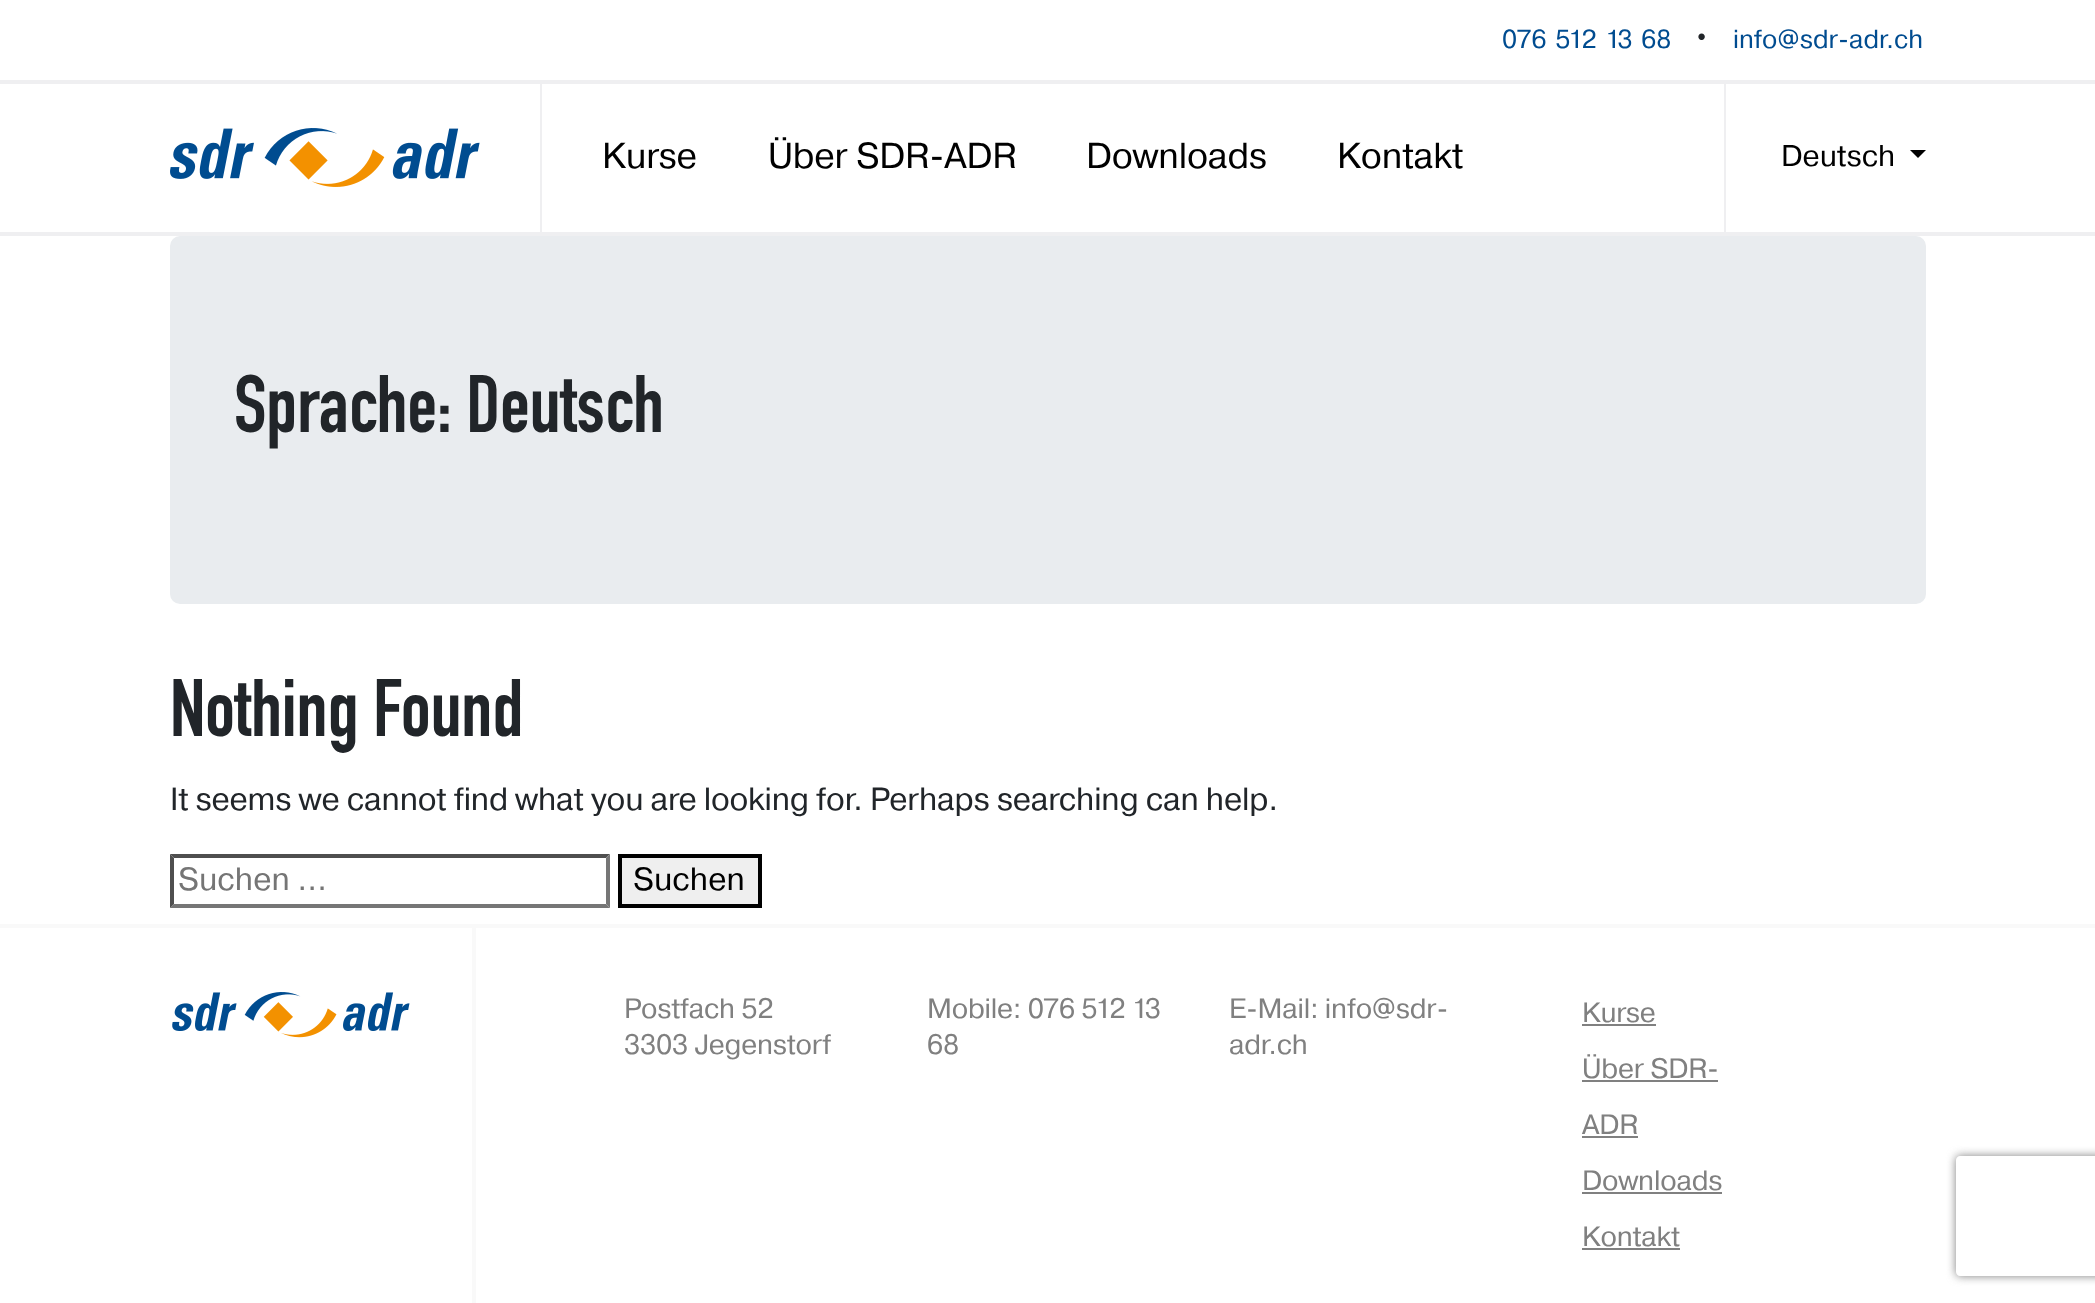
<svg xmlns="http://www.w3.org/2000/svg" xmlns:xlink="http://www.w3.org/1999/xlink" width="2095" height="1303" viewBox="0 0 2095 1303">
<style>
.cls-1{font:26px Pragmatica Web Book;fill:#004c90}
.cls-2{font:32px Pragmatica Web Book;letter-spacing:-0.2px;fill:#212529}
.cls-3{font:36px Pragmatica Web Book;letter-spacing:-0.2px;fill:#000000}
.cls-4{font:30px Pragmatica Web Book;fill:#000000}
.cls-5{font:80px 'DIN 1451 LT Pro';letter-spacing:-0.2px;fill:#212529}
.cls-6{font:32px Pragmatica Web Book;fill:#757575}
.cls-7{font:32px Pragmatica Web Book;fill:#000000}
.cls-8{font:28px Pragmatica Web Book;letter-spacing:-0.2px;fill:#808080}
</style>
<defs>
<clipPath id="clip1"><path d="M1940 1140H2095V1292H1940ZM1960 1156H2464C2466 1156 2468 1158 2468 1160V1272C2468 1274 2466 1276 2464 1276H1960C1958 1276 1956 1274 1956 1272V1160C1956 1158 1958 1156 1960 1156Z" clip-rule="evenodd"/></clipPath>
</defs>
<rect width="100%" height="100%" fill="#ffffff"/>
<rect fill="#efeff1" x="0" y="80" width="2095" height="4"/>
<rect fill="#efeff1" x="0" y="232" width="2095" height="4"/>
<rect fill="#efeff1" x="540" y="84" width="2" height="148"/>
<image xlink:href="image0.png" x="170" y="128" width="310" height="59"/>
<rect fill="#efeff1" x="1724" y="84" width="2" height="148"/>
<path fill="#000000" d="M1910 150H1926L1918 158Z"/>
<rect fill="#e9ecef" x="170" y="236" width="1756" height="368" rx="10"/>
<path fill="#4f4f4f" d="M170 854H610L606 858H174Z"/>
<path fill="#767676" d="M610 854V908L606 904V858Z"/>
<path fill="#767676" d="M610 908H170L174 904H606Z"/>
<path fill="#4f4f4f" d="M170 908V854L174 858V904Z"/>
<rect fill="#efefef" stroke="#000000" stroke-width="4" x="620" y="856" width="140" height="50"/>
<rect fill="#f9f9f9" x="0" y="924" width="2095" height="4"/>
<image xlink:href="image1.png" x="172" y="992" width="238" height="46"/>
<rect fill="#f9f9f9" x="472" y="928" width="4" height="375"/>
<rect fill="#808080" x="1582" y="1024" width="74" height="2"/>
<rect fill="#808080" x="1582" y="1080" width="136" height="2"/>
<rect fill="#808080" x="1582" y="1136" width="56" height="2"/>
<rect fill="#808080" x="1582" y="1192" width="140" height="2"/>
<rect fill="#808080" x="1582" y="1248" width="98" height="2"/>
<g clip-path="url(#clip1)">
<rect fill="#808080" filter="blur(5px)" x="1956" y="1156" width="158" height="120" rx="4"/>
</g>
<text class="cls-1" x="1502" y="48" word-spacing="2.5">076 512 13 68</text>
<text class="cls-2" x="1692" y="48">•</text>
<text class="cls-1" x="1733" y="48">info@sdr-adr.ch</text>
<text class="cls-3" x="602" y="168">Kurse</text>
<text class="cls-3" x="768" y="168">Über SDR-ADR</text>
<text class="cls-3" x="1086" y="168">Downloads</text>
<text class="cls-3" x="1337" y="168">Kontakt</text>
<text class="cls-4" x="1781" y="166">Deutsch</text>
<text class="cls-5" x="234" y="432">Sprache: Deutsch</text>
<text class="cls-5" x="170" y="736">Nothing Found</text>
<text class="cls-2" x="170" y="810">It seems we cannot find what you are looking for. Perhaps searching can help.</text>
<text class="cls-6" x="178" y="890">Suchen …</text>
<text class="cls-7" x="633" y="890">Suchen</text>
<text class="cls-8"><tspan x="624" y="1018">Postfach 52</tspan><tspan x="624" y="1054">3303 Jegenstorf</tspan></text>
<text class="cls-8"><tspan x="927" y="1018">Mobile: 076 512 13</tspan><tspan x="927" y="1054">68</tspan></text>
<text class="cls-8"><tspan x="1229" y="1018">E-Mail: info@sdr-</tspan><tspan x="1229" y="1054">adr.ch</tspan></text>
<text class="cls-8" x="1582" y="1022">Kurse</text>
<text class="cls-8" x="1582" y="1078">Über SDR-</text>
<text class="cls-8" x="1582" y="1134">ADR</text>
<text class="cls-8" x="1582" y="1190">Downloads</text>
<text class="cls-8" x="1582" y="1246">Kontakt</text>
</svg>
